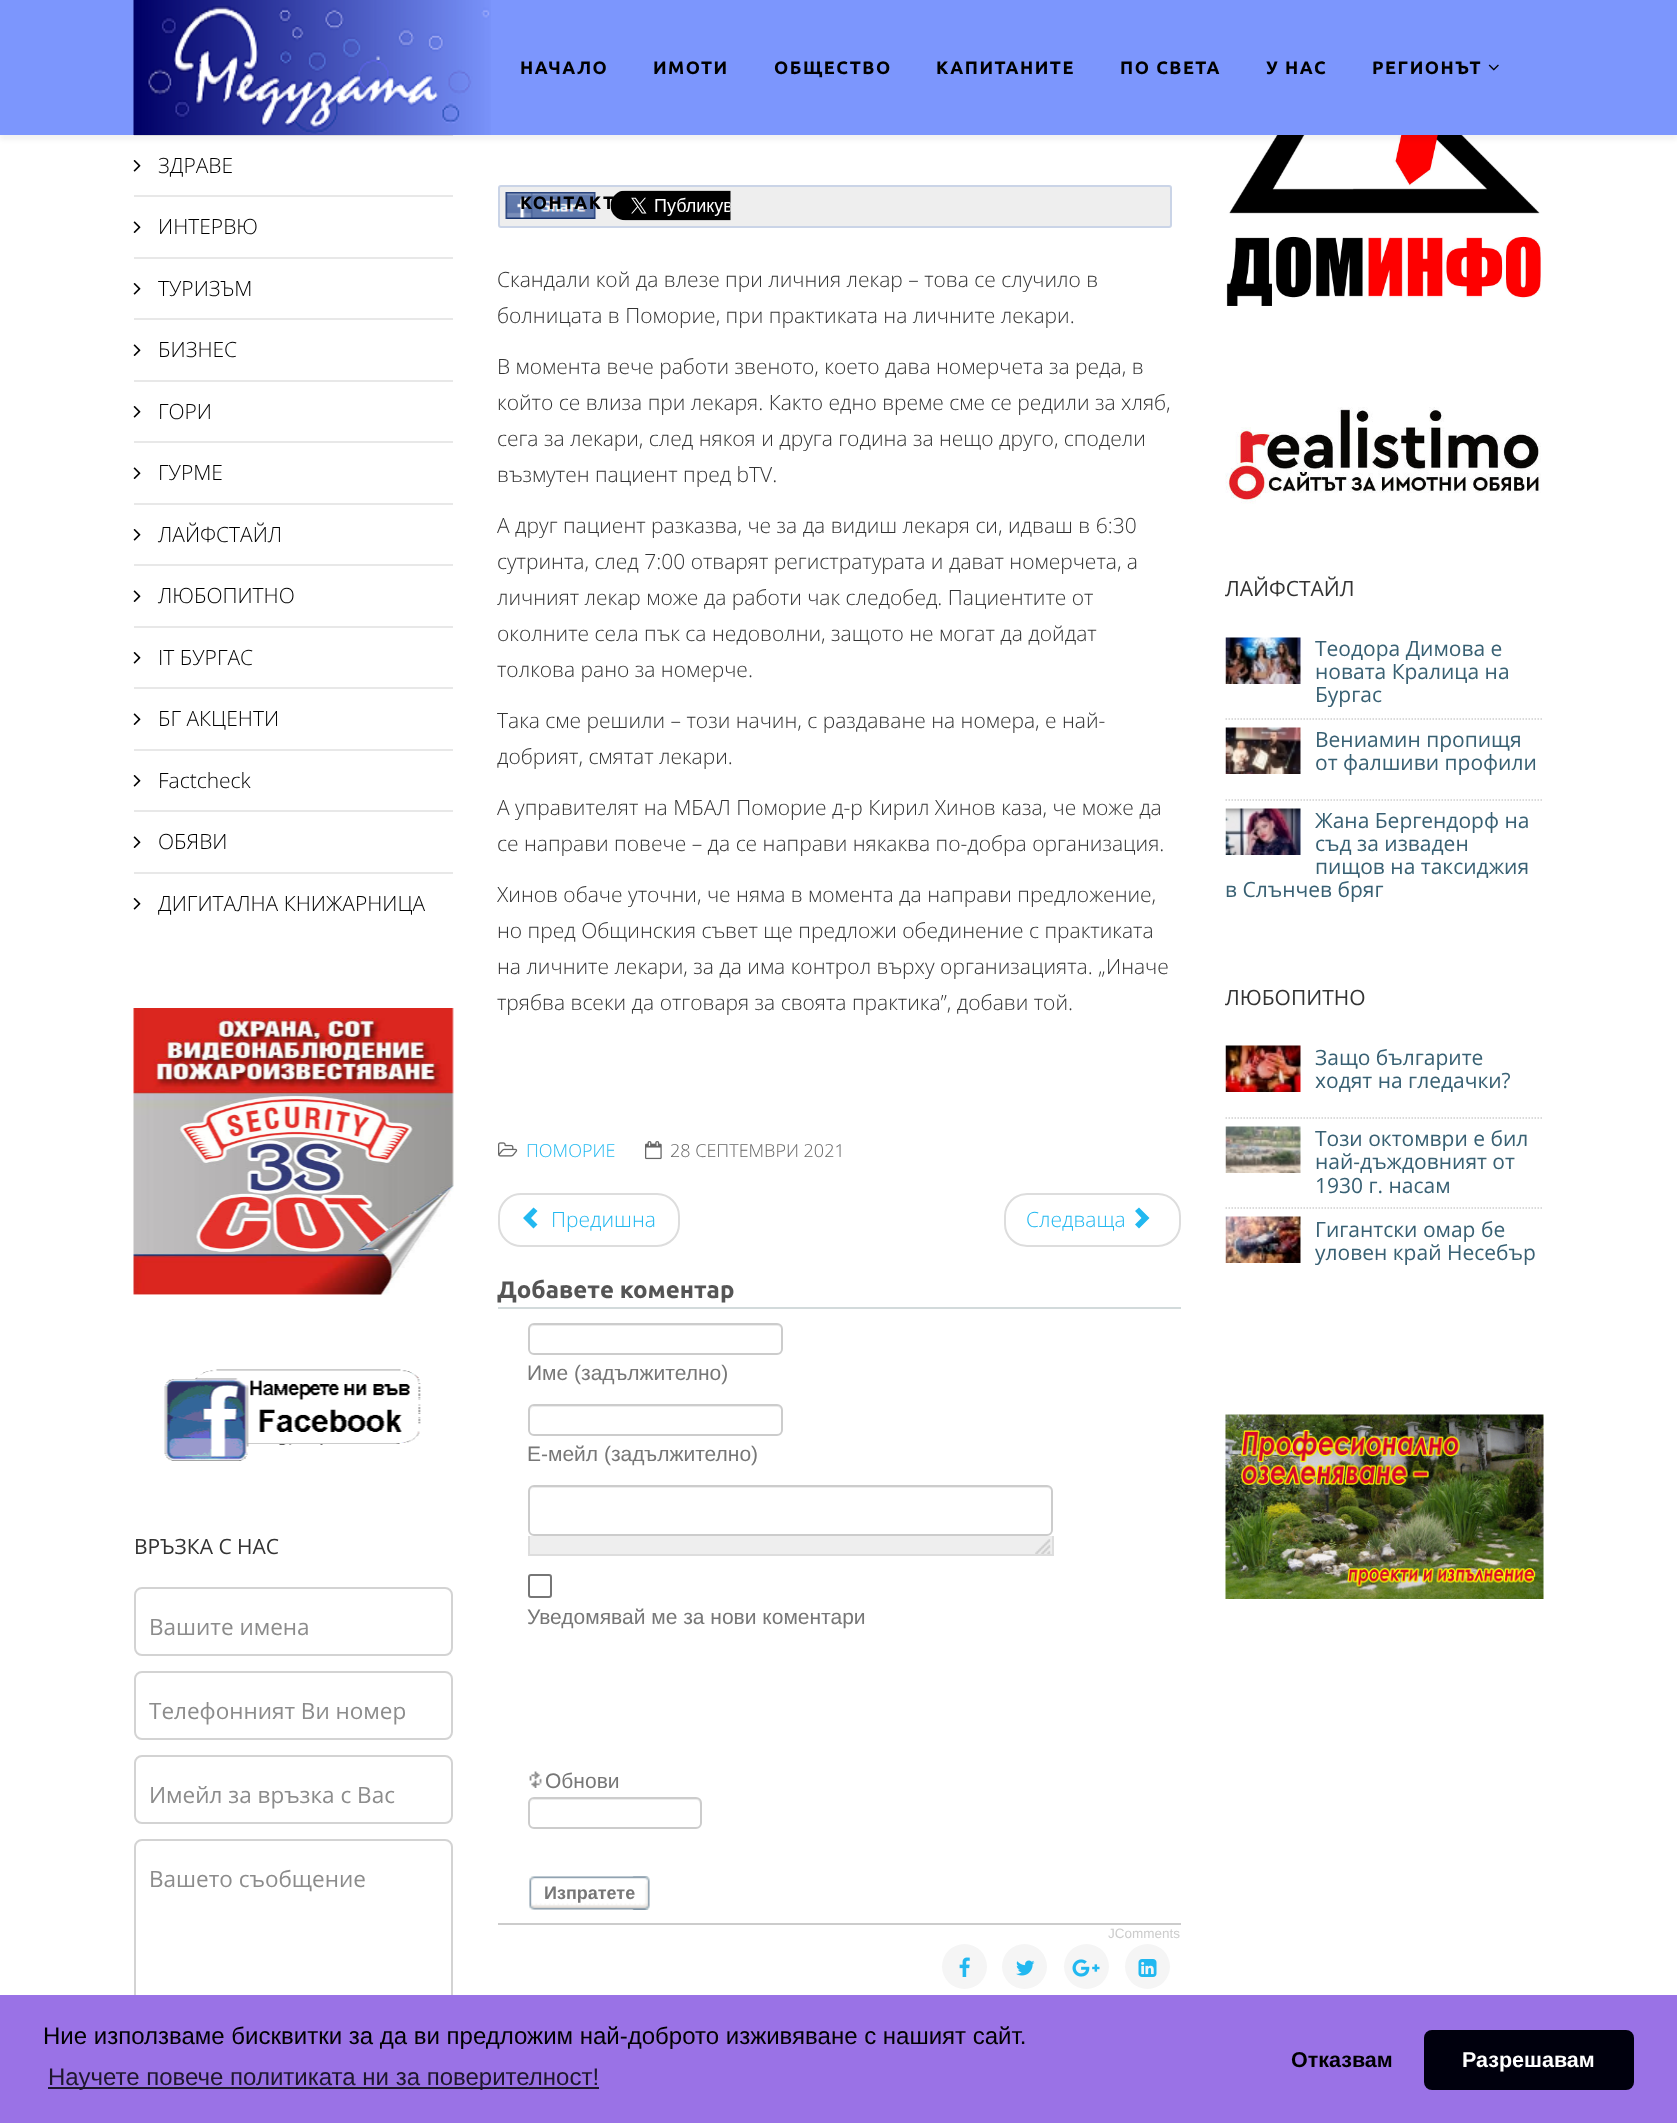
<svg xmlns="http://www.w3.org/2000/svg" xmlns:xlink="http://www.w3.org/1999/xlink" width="1677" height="2123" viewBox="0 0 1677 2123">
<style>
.cls-1{font:bold 18px Ubuntu;letter-spacing:1.5px;fill:#000000}
.cls-2{font:300 21px Open Sans;fill:#000000}
.cls-3{font:21px Open Sans;fill:#333333}
.cls-4{font:22.5px Open Sans;fill:#8c8c8c}
.cls-5{font:300 21px Open Sans;fill:#333333}
.cls-6{font:300 18px Open Sans;fill:#22b8f0}
.cls-7{font:300 18px Open Sans;fill:#666666}
.cls-8{font:300 21px Open Sans;fill:#22b8f0}
.cls-9{font:bold 24px Ubuntu;fill:#555555}
.cls-10{font:21px Liberation Sans;fill:#777777}
.cls-11{font:bold 18px Liberation Sans;fill:#777777}
.cls-12{font:13.5px Liberation Sans;fill:#cccccc}
.cls-13{font:21px Open Sans;fill:#386073}
.cls-14{font:24px Liberation Sans;fill:#000000}
.cls-15{font:24px Liberation Sans;fill:#1f172e}
.cls-16{font:bold 21.5px Liberation Sans;fill:#000000}
.cls-17{font:bold 21.5px Liberation Sans;fill:#ffffff}
</style>
<rect width="100%" height="100%" fill="#ffffff"/>
<rect fill="#e8e8e8" x="134" y="135" width="319" height="1"/>
<image xlink:href="image18.png" x="1226" y="135" width="315" height="171"/>
<rect fill="#000000" fill-opacity="0.05" filter="blur(2px)" x="0" y="5" width="1677" height="135"/>
<rect fill="#7c96fd" x="0" y="0" width="1677" height="135"/>
<image xlink:href="image0.png" x="133" y="0" width="358" height="135"/>
<image xlink:href="image1.png" x="1488" y="64" width="11" height="7"/>
<rect fill="#e8e8e8" x="134" y="195" width="319" height="2"/>
<image xlink:href="image2.png" x="133" y="160" width="8" height="12"/>
<rect fill="#e8e8e8" x="134" y="257" width="319" height="2"/>
<image xlink:href="image3.png" x="133" y="221" width="8" height="12"/>
<rect fill="#e8e8e8" x="134" y="318" width="319" height="2"/>
<image xlink:href="image2.png" x="133" y="283" width="8" height="12"/>
<rect fill="#e8e8e8" x="134" y="380" width="319" height="2"/>
<image xlink:href="image3.png" x="133" y="344" width="8" height="12"/>
<rect fill="#e8e8e8" x="134" y="441" width="319" height="2"/>
<image xlink:href="image2.png" x="133" y="406" width="8" height="12"/>
<rect fill="#e8e8e8" x="134" y="503" width="319" height="2"/>
<image xlink:href="image3.png" x="133" y="467" width="8" height="12"/>
<rect fill="#e8e8e8" x="134" y="564" width="319" height="2"/>
<image xlink:href="image2.png" x="133" y="529" width="8" height="12"/>
<rect fill="#e8e8e8" x="134" y="626" width="319" height="2"/>
<image xlink:href="image3.png" x="133" y="590" width="8" height="12"/>
<rect fill="#e8e8e8" x="134" y="687" width="319" height="2"/>
<image xlink:href="image2.png" x="133" y="652" width="8" height="12"/>
<rect fill="#e8e8e8" x="134" y="749" width="319" height="2"/>
<image xlink:href="image3.png" x="133" y="713" width="8" height="12"/>
<rect fill="#e8e8e8" x="134" y="810" width="319" height="2"/>
<image xlink:href="image2.png" x="133" y="775" width="8" height="12"/>
<rect fill="#e8e8e8" x="134" y="872" width="319" height="2"/>
<image xlink:href="image3.png" x="133" y="836" width="8" height="12"/>
<image xlink:href="image2.png" x="133" y="898" width="8" height="12"/>
<image xlink:href="image4.png" x="133" y="1008" width="321" height="287"/>
<image xlink:href="image5.png" x="164" y="1369" width="257" height="92"/>
<rect fill="none" stroke="#d3d3d3" stroke-width="2" x="135" y="1588" width="317" height="67" rx="7"/>
<rect fill="none" stroke="#d3d3d3" stroke-width="2" x="135" y="1672" width="317" height="67" rx="7"/>
<rect fill="none" stroke="#d3d3d3" stroke-width="2" x="135" y="1756" width="317" height="67" rx="7"/>
<rect fill="none" stroke="#d3d3d3" stroke-width="2" x="135" y="1840" width="317" height="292" rx="7"/>
<rect fill="#eeeeee" stroke="#cad4e7" stroke-width="2" x="499" y="186" width="672" height="41" rx="2"/>
<image xlink:href="image6.png" x="505" y="192" width="91" height="27"/>
<image xlink:href="image7.png" x="610" y="190" width="121" height="31"/>
<image xlink:href="image8.png" x="498" y="1142" width="20" height="15"/>
<image xlink:href="image9.png" x="645" y="1141" width="17" height="19"/>
<rect fill="none" stroke="#dddddd" stroke-width="2" x="499" y="1194" width="180" height="52" rx="22"/>
<path fill="#22b8f0" d="M533.5 1228.5L523 1218L533.5 1207.5L537.5 1211L531 1218L537.5 1224.5Z"/>
<rect fill="none" stroke="#dddddd" stroke-width="2" x="1005" y="1194" width="175" height="52" rx="22"/>
<path fill="#22b8f0" d="M1139 1207.5L1149.5 1218L1139 1228.5L1135 1224.5L1141.5 1218L1135 1211Z"/>
<rect fill="#d2dadb" x="498" y="1307" width="683" height="2"/>
<path fill="#ececec" d="M534 1326H777C779 1326 782 1328 782 1330C782 1327 780 1325 777 1325H535C532 1325 530 1327 530 1330C530 1328 532 1326 534 1326Z"/>
<rect fill="none" stroke="#cccccc" stroke-width="2" x="529" y="1324" width="253" height="30" rx="5"/>
<path fill="#ececec" d="M534 1407H777C779 1407 782 1409 782 1412V1411C782 1408 780 1406 777 1406H535C532 1406 530 1408 530 1411V1412C530 1409 532 1407 534 1407Z"/>
<rect fill="none" stroke="#cccccc" stroke-width="2" x="529" y="1405" width="253" height="30" rx="5"/>
<path fill="#ececec" d="M534 1488H1047C1049 1488 1052 1490 1052 1492C1052 1489 1050 1487 1047 1487H535C532 1487 530 1489 530 1492C530 1490 532 1488 534 1488Z"/>
<rect fill="none" stroke="#cccccc" stroke-width="2" x="529" y="1486" width="523" height="49" rx="5"/>
<rect fill="#eeeeee" x="530" y="1536" width="522" height="18"/>
<image xlink:href="image10.png" x="1035" y="1539" width="16" height="15"/>
<rect fill="#dddddd" x="1052" y="1536" width="2" height="20"/>
<rect fill="#dddddd" x="528" y="1554" width="525" height="2"/>
<rect fill="#dddddd" x="528" y="1536" width="2" height="20"/>
<rect fill="none" stroke="#767676" stroke-width="2" x="529" y="1575" width="22" height="22" rx="2"/>
<image xlink:href="image11.png" x="529" y="1771" width="13" height="17"/>
<path fill="#ececec" d="M534 1800H696C701 1800 700 1808 700 1811V1825C701 1824 701 1823 701 1822V1804C701 1801 699 1799 696 1799H535C532 1799 530 1801 530 1804C530 1802 532 1800 534 1800Z"/>
<rect fill="none" stroke="#cccccc" stroke-width="2" x="529" y="1798" width="172" height="30" rx="5"/>
<image xlink:href="image12.png" x="529" y="1876" width="121" height="34"/>
<image xlink:href="image13.png" x="632" y="1876" width="18" height="34"/>
<rect fill="#cccccc" x="498" y="1923" width="683" height="2"/>
<circle fill="#f5f5f5" cx="964.5" cy="1966.5" r="22.5"/>
<image xlink:href="image14.png" x="959" y="1957" width="11" height="20"/>
<circle fill="#f5f5f5" cx="1024.5" cy="1966.5" r="22.5"/>
<image xlink:href="image15.png" x="1016" y="1960" width="19" height="16"/>
<circle fill="#f5f5f5" cx="1086.5" cy="1966.5" r="22.5"/>
<image xlink:href="image16.png" x="1072" y="1959" width="28" height="18"/>
<circle fill="#f5f5f5" cx="1147.5" cy="1966.5" r="22.5"/>
<image xlink:href="image17.png" x="1138" y="1959" width="19" height="18"/>
<image xlink:href="image19.png" x="1225" y="407" width="316" height="97"/>
<path fill="none" stroke="#cfcfcf" stroke-width="1.5" stroke-dasharray="1.5 1.5" d="M1225.5 719H1543.5"/>
<image xlink:href="image20.png" x="1225" y="637" width="76" height="47"/>
<path fill="none" stroke="#cfcfcf" stroke-width="1.5" stroke-dasharray="1.5 1.5" d="M1225.5 800H1543.5"/>
<image xlink:href="image21.png" x="1225" y="727" width="76" height="47"/>
<image xlink:href="image22.png" x="1225" y="808" width="76" height="47"/>
<path fill="none" stroke="#cfcfcf" stroke-width="1.5" stroke-dasharray="1.5 1.5" d="M1225.5 1118H1543.5"/>
<image xlink:href="image23.png" x="1225" y="1045" width="76" height="47"/>
<path fill="none" stroke="#cfcfcf" stroke-width="1.5" stroke-dasharray="1.5 1.5" d="M1225.5 1208H1543.5"/>
<image xlink:href="image24.png" x="1225" y="1126" width="76" height="47"/>
<image xlink:href="image25.png" x="1225" y="1216" width="76" height="47"/>
<image xlink:href="image26.png" x="1225" y="1414" width="319" height="185"/>
<rect fill="#9a72e6" x="0" y="1995" width="1677" height="128"/>
<rect fill="#1f172e" x="48" y="2087" width="551" height="2"/>
<rect fill="#00000d" x="1424" y="2030" width="210" height="60" rx="8"/>
<text class="cls-1" x="520" y="74">НАЧАЛО</text>
<text class="cls-1" x="653" y="74">ИМОТИ</text>
<text class="cls-1" x="774" y="74">ОБЩЕСТВО</text>
<text class="cls-1" x="936" y="74">КАПИТАНИТЕ</text>
<text class="cls-1" x="1120" y="74">ПО СВЕТА</text>
<text class="cls-1" x="1266" y="74">У НАС</text>
<text class="cls-1" x="1372" y="74">РЕГИОНЪТ</text>
<text class="cls-1" x="520" y="209">КОНТАКТ</text>
<text class="cls-2" x="158" y="173">ЗДРАВЕ</text>
<text class="cls-2" x="158" y="234">ИНТЕРВЮ</text>
<text class="cls-2" x="158" y="296">ТУРИЗЪМ</text>
<text class="cls-2" x="158" y="357">БИЗНЕС</text>
<text class="cls-2" x="158" y="419">ГОРИ</text>
<text class="cls-2" x="158" y="480">ГУРМЕ</text>
<text class="cls-2" x="158" y="542">ЛАЙФСТАЙЛ</text>
<text class="cls-2" x="158" y="603">ЛЮБОПИТНО</text>
<text class="cls-2" x="158" y="665">IT БУРГАС</text>
<text class="cls-2" x="158" y="726">БГ АКЦЕНТИ</text>
<text class="cls-2" x="158" y="788">Factcheck</text>
<text class="cls-2" x="158" y="849">ОБЯВИ</text>
<text class="cls-2" x="158" y="911">ДИГИТАЛНА КНИЖАРНИЦА</text>
<text class="cls-3" x="134" y="1554">ВРЪЗКА С НАС</text>
<text class="cls-4" x="149" y="1635">Вашите имена</text>
<text class="cls-4" x="149" y="1719">Телефонният Ви номер</text>
<text class="cls-4" x="149" y="1803">Имейл за връзка с Вас</text>
<text class="cls-4" x="149" y="1887">Вашето съобщение</text>
<text class="cls-5"><tspan x="497" y="287">Скандали кой да влезе при личния лекар – това се случило в</tspan><tspan x="497" y="323">болницата в Поморие, при практиката на личните лекари.</tspan></text>
<text class="cls-5"><tspan x="497" y="374">В момента вече работи звеното, което дава номерчета за реда, в</tspan><tspan x="497" y="410">който се влиза при лекаря. Както едно време сме се редили за хляб,</tspan><tspan x="497" y="446">сега за лекари, след някоя и друга година за нещо друго, сподели</tspan><tspan x="497" y="482">възмутен пациент пред bTV.</tspan></text>
<text class="cls-5"><tspan x="497" y="533">А друг пациент разказва, че за да видиш лекаря си, идваш в 6:30</tspan><tspan x="497" y="569">сутринта, след 7:00 отварят регистратурата и дават номерчета, а</tspan><tspan x="497" y="605">личният лекар може да работи чак следобед. Пациентите от</tspan><tspan x="497" y="641">околните села пък са недоволни, защото не могат да дойдат</tspan><tspan x="497" y="677">толкова рано за номерче.</tspan></text>
<text class="cls-5"><tspan x="497" y="728">Така сме решили – този начин, с раздаване на номера, е най-</tspan><tspan x="497" y="764">добрият, смятат лекари.</tspan></text>
<text class="cls-5"><tspan x="497" y="815">А управителят на МБАЛ Поморие д-р Кирил Хинов каза, че може да</tspan><tspan x="497" y="851">се направи повече – да се направи някаква по-добра организация.</tspan></text>
<text class="cls-5"><tspan x="497" y="902">Хинов обаче уточни, че няма в момента да направи предложение,</tspan><tspan x="497" y="938">но пред Общинския съвет ще предложи обединение с практиката</tspan><tspan x="497" y="974">на личните лекари, за да има контрол върху организацията. „Иначе</tspan><tspan x="497" y="1010">трябва всеки да отговаря за своята практика”, добави той.</tspan></text>
<text class="cls-6" x="526" y="1157">ПОМОРИЕ</text>
<text class="cls-7" x="670" y="1157">28 СЕПТЕМВРИ 2021</text>
<text class="cls-8" x="551" y="1227">Предишна</text>
<text class="cls-8" x="1026" y="1227">Следваща</text>
<text class="cls-9" x="497" y="1298">Добавете коментар</text>
<text class="cls-10" x="527" y="1380">Име (задължително)</text>
<text class="cls-10" x="527" y="1461">Е-мейл (задължително)</text>
<text class="cls-10" x="527" y="1624">Уведомявай ме за нови коментари</text>
<text class="cls-10" x="545" y="1788">Обнови</text>
<text class="cls-11" x="544" y="1899">Изпратете</text>
<text class="cls-12" x="1108" y="1938">JComments</text>
<text class="cls-3" x="1225" y="596">ЛАЙФСТАЙЛ</text>
<text class="cls-13"><tspan x="1315" y="656">Теодора Димова е</tspan><tspan x="1315" y="679">новата Кралица на</tspan><tspan x="1315" y="702">Бургас</tspan></text>
<text class="cls-13"><tspan x="1315" y="747">Вениамин пропищя</tspan><tspan x="1315" y="770">от фалшиви профили</tspan></text>
<text class="cls-13"><tspan x="1315" y="828">Жана Бергендорф на</tspan><tspan x="1315" y="851">съд за изваден</tspan><tspan x="1315" y="874">пищов на таксиджия</tspan></text>
<text class="cls-13" x="1225" y="897">в Слънчев бряг</text>
<text class="cls-3" x="1225" y="1005">ЛЮБОПИТНО</text>
<text class="cls-13"><tspan x="1315" y="1065">Защо българите</tspan><tspan x="1315" y="1088">ходят на гледачки?</tspan></text>
<text class="cls-13"><tspan x="1315" y="1146">Този октомври е бил</tspan><tspan x="1315" y="1169">най-дъждовният от</tspan><tspan x="1315" y="1193">1930 г. насам</tspan></text>
<text class="cls-13"><tspan x="1315" y="1237">Гигантски омар бе</tspan><tspan x="1315" y="1260">уловен край Несебър</tspan></text>
<text class="cls-14" x="43" y="2044">Ние използваме бисквитки за да ви предложим най-доброто изживяване с нашият сайт.</text>
<text class="cls-15" x="48" y="2085">Научете повече политиката ни за поверителност!</text>
<text class="cls-16" x="1291" y="2067">Отказвам</text>
<text class="cls-17" x="1462" y="2067">Разрешавам</text>
</svg>
